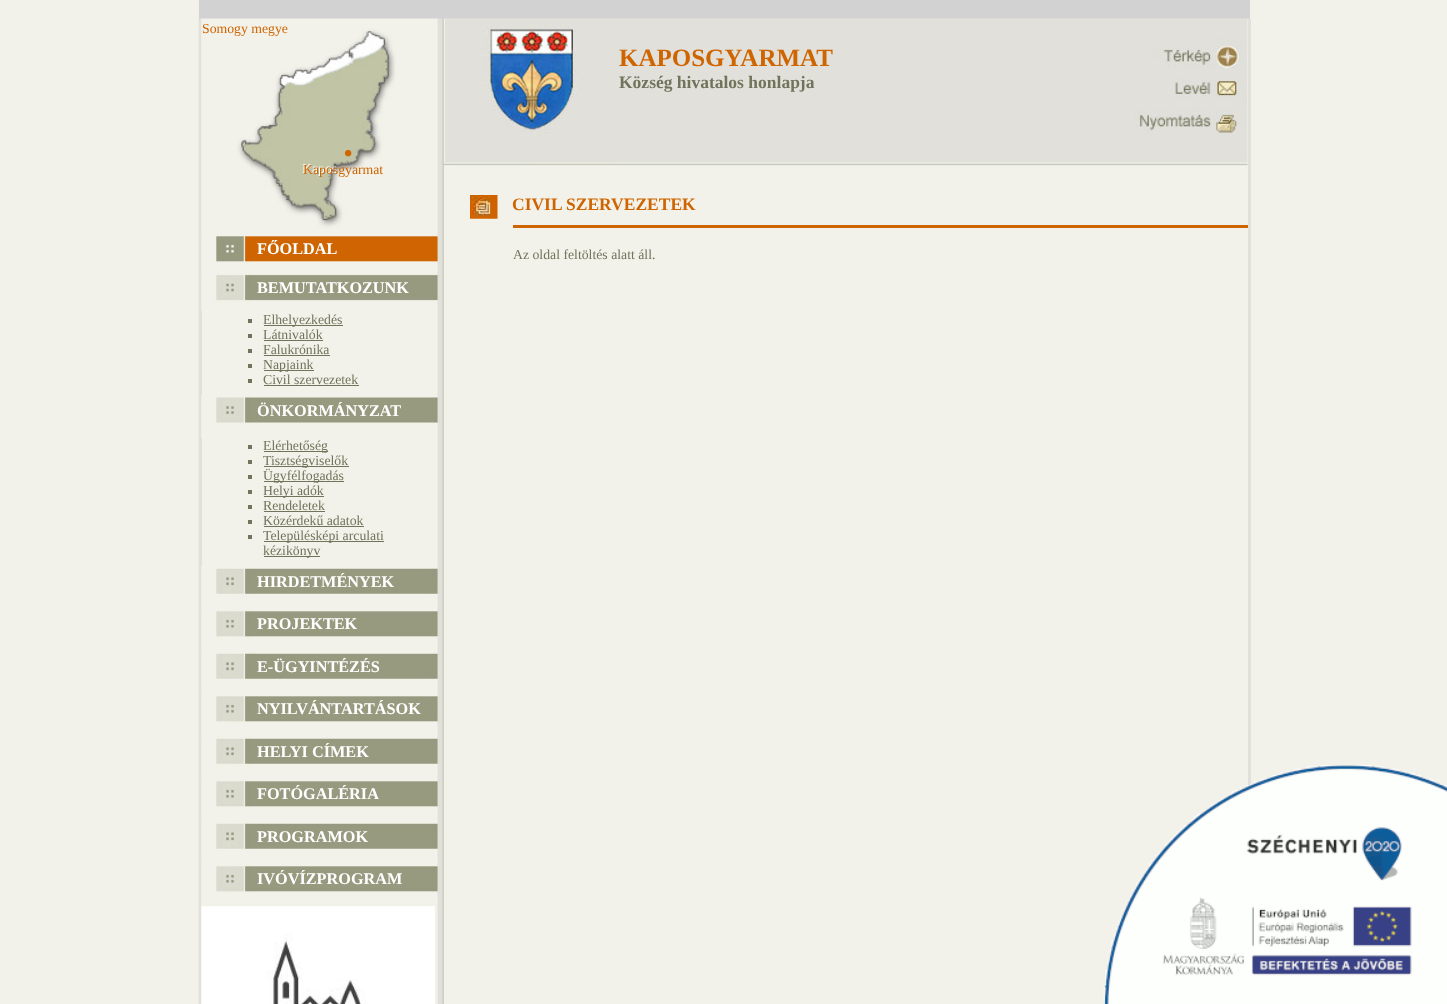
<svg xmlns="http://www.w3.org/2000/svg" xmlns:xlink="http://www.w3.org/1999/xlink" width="1447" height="1004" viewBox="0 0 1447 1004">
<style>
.cls-1{font:13.75px Liberation Serif;fill:#cf6501}
.cls-2{font:13.75px Liberation Serif;fill:#ffffff}
.cls-3{font:bold 16.25px Liberation Serif;fill:#ffffff}
.cls-4{font:13.75px Liberation Serif;fill:#71745b}
.cls-5{font:bold 25px Liberation Serif;fill:#cf6501}
.cls-6{font:bold 17.5px Liberation Serif;fill:#71745b}
.cls-7{font:bold 17.5px Liberation Serif;fill:#cf6501}
</style>
<rect width="100%" height="100%" fill="#f2f2ea"/>
<rect fill="#d2d2d2" x="199" y="0" width="1051" height="19"/>
<image xlink:href="image0.png" x="198" y="18" width="247" height="986"/>
<rect fill="#e1e0db" x="199" y="19" width="3" height="985"/>
<image xlink:href="image1.png" x="201" y="18" width="244" height="216"/>
<image xlink:href="image2.png" x="345" y="150" width="7" height="7"/>
<image xlink:href="image3.png" x="201" y="234" width="240" height="39"/>
<image xlink:href="image4.png" x="201" y="272" width="239" height="39"/>
<rect fill="#71745b" x="248" y="319" width="4" height="4"/>
<rect fill="#71745b" x="264" y="325" width="79" height="1"/>
<rect fill="#71745b" x="248" y="334" width="4" height="4"/>
<rect fill="#71745b" x="264" y="340" width="59" height="1"/>
<rect fill="#71745b" x="248" y="349" width="4" height="4"/>
<rect fill="#71745b" x="264" y="355" width="66" height="1"/>
<rect fill="#71745b" x="248" y="364" width="4" height="4"/>
<rect fill="#71745b" x="264" y="370" width="50" height="1"/>
<rect fill="#71745b" x="248" y="379" width="4" height="4"/>
<rect fill="#71745b" x="264" y="385" width="95" height="1"/>
<image xlink:href="image5.png" x="201" y="395" width="239" height="43"/>
<rect fill="#71745b" x="248" y="445" width="4" height="4"/>
<rect fill="#71745b" x="264" y="451" width="64" height="1"/>
<rect fill="#71745b" x="248" y="460" width="4" height="4"/>
<rect fill="#71745b" x="264" y="466" width="85" height="1"/>
<rect fill="#71745b" x="248" y="475" width="4" height="4"/>
<rect fill="#71745b" x="264" y="481" width="80" height="1"/>
<rect fill="#71745b" x="248" y="490" width="4" height="4"/>
<rect fill="#71745b" x="264" y="496" width="60" height="1"/>
<rect fill="#71745b" x="248" y="505" width="4" height="4"/>
<rect fill="#71745b" x="264" y="511" width="61" height="1"/>
<rect fill="#71745b" x="248" y="520" width="4" height="4"/>
<rect fill="#71745b" x="264" y="526" width="100" height="1"/>
<rect fill="#71745b" x="248" y="535" width="4" height="4"/>
<rect fill="#71745b" x="264" y="541" width="120" height="1"/>
<rect fill="#71745b" x="264" y="556" width="56" height="1"/>
<image xlink:href="image6.png" x="201" y="566" width="239" height="43"/>
<image xlink:href="image7.png" x="201" y="609" width="239" height="42"/>
<image xlink:href="image8.png" x="201" y="651" width="239" height="43"/>
<image xlink:href="image7.png" x="201" y="694" width="239" height="42"/>
<image xlink:href="image8.png" x="201" y="736" width="239" height="43"/>
<image xlink:href="image9.png" x="201" y="779" width="239" height="42"/>
<image xlink:href="image8.png" x="201" y="821" width="239" height="43"/>
<image xlink:href="image7.png" x="201" y="864" width="239" height="42"/>
<image xlink:href="image10.png" x="201" y="906" width="234" height="98"/>
<rect fill="#dadad8" x="445" y="18" width="805" height="1"/>
<rect fill="#e1e0db" x="1248" y="19" width="3" height="767"/>
<image xlink:href="image11.png" x="445" y="19" width="803" height="147"/>
<image xlink:href="image12.png" x="484" y="26" width="93" height="107"/>
<image xlink:href="image13.png" x="470" y="195" width="28" height="24"/>
<rect fill="#cf6501" x="513" y="225" width="735" height="3"/>
<image xlink:href="image14.png" x="1103" y="765" width="344" height="239"/>
<text class="cls-1" x="202" y="33">Somogy megye</text>
<text class="cls-2" x="302" y="173">Kapos</text>
<text class="cls-1" x="303" y="174">Kaposgyarmat</text>
<text class="cls-3" x="257" y="254">FŐOLDAL</text>
<text class="cls-3" x="257" y="293">BEMUTATKOZUNK</text>
<text class="cls-4"><tspan x="263" y="324">Elhelyezkedés</tspan><tspan x="263" y="339">Látnivalók</tspan><tspan x="263" y="354">Falukrónika</tspan><tspan x="263" y="369">Napjaink</tspan><tspan x="263" y="384">Civil szervezetek</tspan></text>
<text class="cls-3" x="257" y="416">ÖNKORMÁNYZAT</text>
<text class="cls-4"><tspan x="263" y="450">Elérhetőség</tspan><tspan x="263" y="465">Tisztségviselők</tspan><tspan x="263" y="480">Ügyfélfogadás</tspan><tspan x="263" y="495">Helyi adók</tspan><tspan x="263" y="510">Rendeletek</tspan><tspan x="263" y="525">Közérdekű adatok</tspan><tspan x="263" y="540">Településképi arculati</tspan><tspan x="263" y="555">kézikönyv</tspan></text>
<text class="cls-3" x="257" y="587">HIRDETMÉNYEK</text>
<text class="cls-3" x="257" y="629">PROJEKTEK</text>
<text class="cls-3" x="257" y="672">E-ÜGYINTÉZÉS</text>
<text class="cls-3" x="257" y="714">NYILVÁNTARTÁSOK</text>
<text class="cls-3" x="257" y="757">HELYI CÍMEK</text>
<text class="cls-3" x="257" y="799">FOTÓGALÉRIA</text>
<text class="cls-3" x="257" y="842">PROGRAMOK</text>
<text class="cls-3" x="257" y="884">IVÓVÍZPROGRAM</text>
<text class="cls-5" x="619" y="66">KAPOSGYARMAT</text>
<text class="cls-6" x="619" y="88">Község hivatalos honlapja</text>
<text class="cls-7" x="512" y="210">CIVIL SZERVEZETEK</text>
<text class="cls-4" x="513" y="259">Az oldal feltöltés alatt áll.</text>
</svg>
